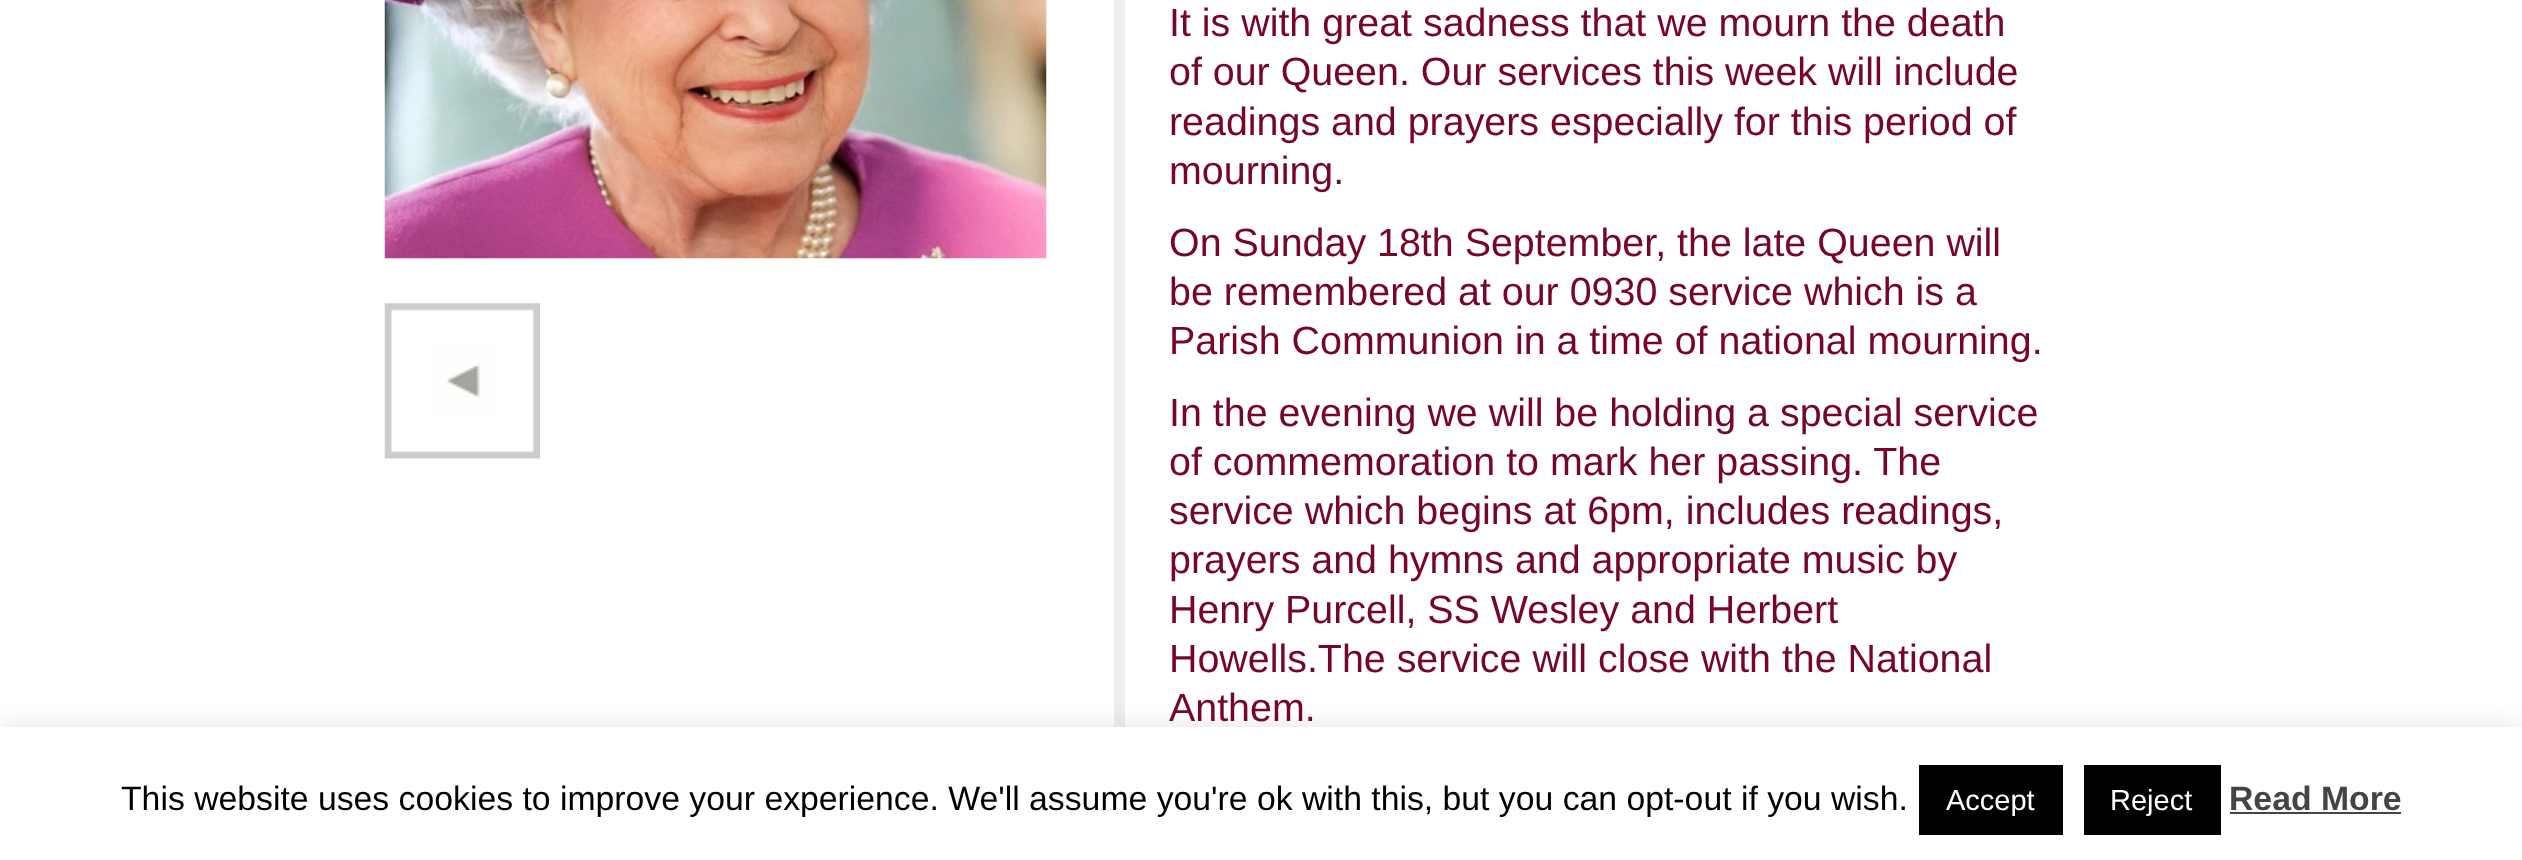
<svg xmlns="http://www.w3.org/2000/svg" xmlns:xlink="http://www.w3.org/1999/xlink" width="2522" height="860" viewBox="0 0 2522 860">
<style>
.cls-1{font:39.4px Liberation Sans;fill:#77052a}
.cls-2{font:33.75px Liberation Sans;fill:#000000}
.cls-3{font:29px Liberation Sans;fill:#ffffff}
.cls-4{font:bold 33.75px Liberation Sans;fill:#444444}
</style>
<rect width="100%" height="100%" fill="#ffffff"/>
<image xlink:href="image0.png" x="384" y="0" width="663" height="259"/>
<image xlink:href="image1.png" x="384" y="303" width="156" height="156"/>
<rect fill="#eeeeee" x="1114" y="0" width="11" height="727"/>
<rect fill="#acabab" fill-opacity="0.3" filter="blur(11px)" x="0" y="725" width="2522" height="135"/>
<rect fill="#ffffff" x="0" y="727" width="2522" height="133"/>
<rect fill="#000000" x="1919" y="765" width="144" height="70"/>
<rect fill="#000000" x="2084" y="765" width="137" height="70"/>
<rect fill="#444444" x="2230" y="812" width="171" height="2"/>
<text class="cls-1"><tspan x="1169" y="36">It is with great sadness that we mourn the death</tspan><tspan x="1169" y="85">of our Queen. Our services this week will include</tspan><tspan x="1169" y="135">readings and prayers especially for this period of</tspan><tspan x="1169" y="184">mourning.</tspan><tspan x="1169" y="256">On Sunday 18th September, the late Queen will</tspan><tspan x="1169" y="305">be remembered at our 0930 service which is a</tspan><tspan x="1169" y="354">Parish Communion in a time of national mourning.</tspan><tspan x="1169" y="426">In the evening we will be holding a special service</tspan><tspan x="1169" y="475">of commemoration to mark her passing. The</tspan><tspan x="1169" y="524">service which begins at 6pm, includes readings,</tspan><tspan x="1169" y="573">prayers and hymns and appropriate music by</tspan><tspan x="1169" y="623">Henry Purcell, SS Wesley and Herbert</tspan><tspan x="1169" y="672">Howells.The service will close with the National</tspan><tspan x="1169" y="721">Anthem.</tspan></text>
<text class="cls-2" x="121" y="810">This website uses cookies to improve your experience. We'll assume you're ok with this, but you can opt-out if you wish.</text>
<text class="cls-3" x="1946" y="810">Accept</text>
<text class="cls-3" x="2110" y="810">Reject</text>
<text class="cls-4" x="2229" y="810">Read More</text>
</svg>
